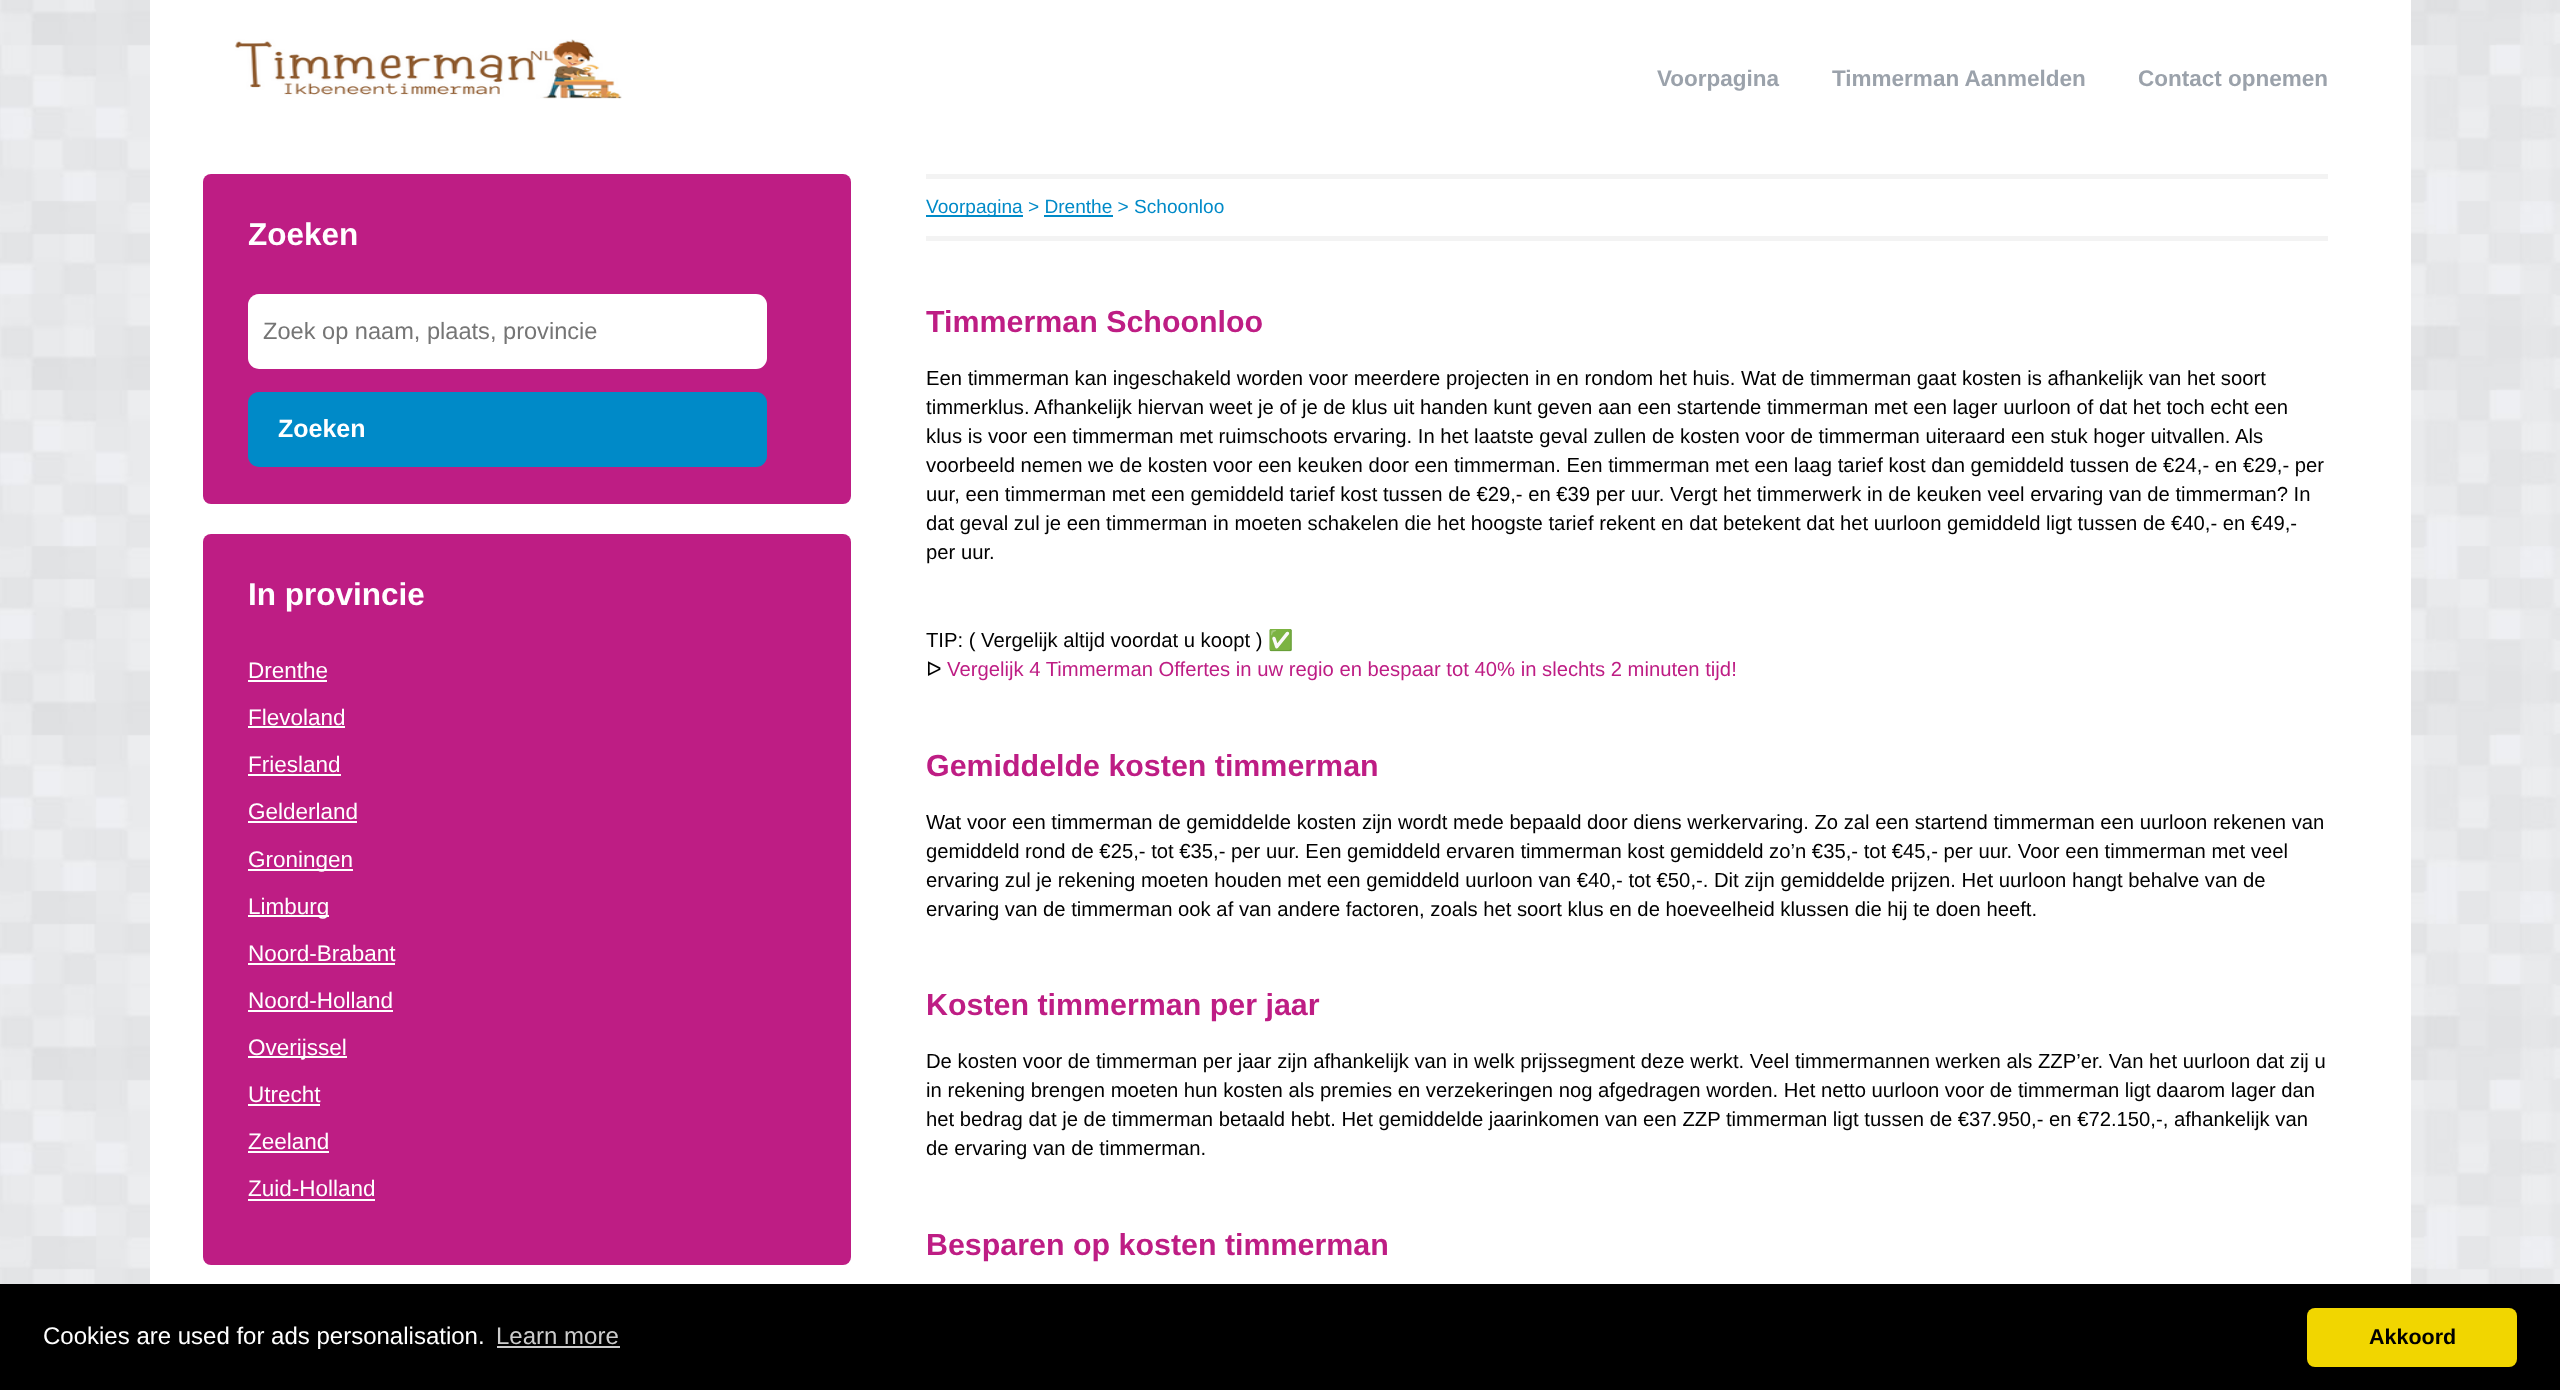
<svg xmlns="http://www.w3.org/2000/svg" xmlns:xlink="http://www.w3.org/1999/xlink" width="2560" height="1390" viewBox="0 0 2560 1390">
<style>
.cls-1{font:bold 22.5px Liberation Sans;fill:#9ba2ab}
.cls-2{font:bold 31.5px Liberation Sans;fill:#ffffff}
.cls-3{font:23.6px Liberation Sans;fill:#757575}
.cls-4{font:bold 25px Liberation Sans;fill:#ffffff}
.cls-5{font:22.5px Liberation Sans;fill:#ffffff}
.cls-6{font:19.1px Liberation Sans;fill:#008ac8}
.cls-7{font:bold 30.4px Liberation Sans;fill:#be1d84}
.cls-8{font:20.25px Liberation Sans;fill:#000000}
.cls-9{font:20.25px Noto Color Emoji;fill:#000000}
.cls-10{font:20.25px DejaVu Sans;fill:#000000}
.cls-11{font:20.25px Liberation Sans;fill:#be1d84}
.cls-12{font:24px Liberation Sans;fill:#ffffff}
.cls-13{font:24px Liberation Sans;fill:#cccccc}
.cls-14{font:bold 21.5px Liberation Sans;fill:#000000}
</style>
<rect width="100%" height="100%" fill="#ffffff"/>
<image xlink:href="image0.png" x="0" y="0" width="2560" height="1284"/>
<rect fill="#ffffff" x="150" y="0" width="2261" height="1284"/>
<image xlink:href="image1.png" x="235" y="39" width="387" height="60"/>
<rect fill="#be1d84" x="203" y="174" width="648" height="330" rx="8"/>
<rect fill="#ffffff" x="248" y="294" width="519" height="75" rx="11"/>
<rect fill="#008ac8" x="248" y="392" width="519" height="75" rx="11"/>
<rect fill="#be1d84" x="203" y="534" width="648" height="731" rx="8"/>
<rect fill="#ffffff" x="248" y="680" width="79" height="2"/>
<rect fill="#ffffff" x="248" y="726" width="97" height="2"/>
<rect fill="#ffffff" x="248" y="774" width="93" height="2"/>
<rect fill="#ffffff" x="248" y="821" width="109" height="2"/>
<rect fill="#ffffff" x="248" y="869" width="105" height="2"/>
<rect fill="#ffffff" x="248" y="915" width="81" height="2"/>
<rect fill="#ffffff" x="248" y="963" width="147" height="2"/>
<rect fill="#ffffff" x="248" y="1010" width="145" height="2"/>
<rect fill="#ffffff" x="248" y="1056" width="99" height="2"/>
<rect fill="#ffffff" x="248" y="1104" width="72" height="2"/>
<rect fill="#ffffff" x="248" y="1151" width="81" height="2"/>
<rect fill="#ffffff" x="248" y="1199" width="127" height="2"/>
<rect fill="#f3f3f3" x="926" y="174" width="1402" height="5"/>
<rect fill="#f3f3f3" x="926" y="236" width="1402" height="5"/>
<rect fill="#008ac8" x="926" y="215" width="97" height="2"/>
<rect fill="#008ac8" x="1044" y="215" width="69" height="2"/>
<rect fill="#000000" x="0" y="1284" width="2560" height="106"/>
<rect fill="#cccccc" x="497" y="1346" width="123" height="2"/>
<rect fill="#f1d600" x="2307" y="1308" width="210" height="59" rx="8"/>
<text class="cls-1" x="1657" y="86">Voorpagina</text>
<text class="cls-1" x="1832" y="86">Timmerman Aanmelden</text>
<text class="cls-1" x="2138" y="86">Contact opnemen</text>
<text class="cls-2" x="248" y="245">Zoeken</text>
<text class="cls-3" x="263" y="339">Zoek op naam, plaats, provincie</text>
<text class="cls-4" x="278" y="437">Zoeken</text>
<text class="cls-2" x="248" y="605">In provincie</text>
<text class="cls-5" x="248" y="678">Drenthe</text>
<text class="cls-5" x="248" y="725">Flevoland</text>
<text class="cls-5" x="248" y="772">Friesland</text>
<text class="cls-5" x="248" y="819">Gelderland</text>
<text class="cls-5" x="248" y="867">Groningen</text>
<text class="cls-5" x="248" y="914">Limburg</text>
<text class="cls-5" x="248" y="961">Noord-Brabant</text>
<text class="cls-5" x="248" y="1008">Noord-Holland</text>
<text class="cls-5" x="248" y="1055">Overijssel</text>
<text class="cls-5" x="248" y="1102">Utrecht</text>
<text class="cls-5" x="248" y="1149">Zeeland</text>
<text class="cls-5" x="248" y="1196">Zuid-Holland</text>
<text class="cls-6" x="926" y="213">Voorpagina &gt; Drenthe &gt; Schoonloo</text>
<text class="cls-7" x="926" y="332">Timmerman Schoonloo</text>
<text class="cls-8"><tspan x="926" y="385">Een timmerman kan ingeschakeld worden voor meerdere projecten in en rondom het huis. Wat de timmerman gaat kosten is afhankelijk van het soort</tspan><tspan x="926" y="414">timmerklus. Afhankelijk hiervan weet je of je de klus uit handen kunt geven aan een startende timmerman met een lager uurloon of dat het toch echt een</tspan><tspan x="926" y="443">klus is voor een timmerman met ruimschoots ervaring. In het laatste geval zullen de kosten voor de timmerman uiteraard een stuk hoger uitvallen. Als</tspan><tspan x="926" y="472">voorbeeld nemen we de kosten voor een keuken door een timmerman. Een timmerman met een laag tarief kost dan gemiddeld tussen de €24,- en €29,- per</tspan><tspan x="926" y="501">uur, een timmerman met een gemiddeld tarief kost tussen de €29,- en €39 per uur. Vergt het timmerwerk in de keuken veel ervaring van de timmerman? In</tspan><tspan x="926" y="530">dat geval zul je een timmerman in moeten schakelen die het hoogste tarief rekent en dat betekent dat het uurloon gemiddeld ligt tussen de €40,- en €49,-</tspan><tspan x="926" y="559">per uur.</tspan></text>
<text class="cls-8" x="926" y="647">TIP: ( Vergelijk altijd voordat u koopt )</text>
<text class="cls-9" x="1268" y="647">✅</text>
<text class="cls-10" x="926" y="676">ᐅ</text>
<text class="cls-11" x="947" y="676">Vergelijk 4 Timmerman Offertes in uw regio en bespaar tot 40% in slechts 2 minuten tijd!</text>
<text class="cls-7" x="926" y="776">Gemiddelde kosten timmerman</text>
<text class="cls-8"><tspan x="926" y="829">Wat voor een timmerman de gemiddelde kosten zijn wordt mede bepaald door diens werkervaring. Zo zal een startend timmerman een uurloon rekenen van</tspan><tspan x="926" y="858">gemiddeld rond de €25,- tot €35,- per uur. Een gemiddeld ervaren timmerman kost gemiddeld zo’n €35,- tot €45,- per uur. Voor een timmerman met veel</tspan><tspan x="926" y="887">ervaring zul je rekening moeten houden met een gemiddeld uurloon van €40,- tot €50,-. Dit zijn gemiddelde prijzen. Het uurloon hangt behalve van de</tspan><tspan x="926" y="916">ervaring van de timmerman ook af van andere factoren, zoals het soort klus en de hoeveelheid klussen die hij te doen heeft.</tspan></text>
<text class="cls-7" x="926" y="1015">Kosten timmerman per jaar</text>
<text class="cls-8"><tspan x="926" y="1068">De kosten voor de timmerman per jaar zijn afhankelijk van in welk prijssegment deze werkt. Veel timmermannen werken als ZZP’er. Van het uurloon dat zij u</tspan><tspan x="926" y="1097">in rekening brengen moeten hun kosten als premies en verzekeringen nog afgedragen worden. Het netto uurloon voor de timmerman ligt daarom lager dan</tspan><tspan x="926" y="1126">het bedrag dat je de timmerman betaald hebt. Het gemiddelde jaarinkomen van een ZZP timmerman ligt tussen de €37.950,- en €72.150,-, afhankelijk van</tspan><tspan x="926" y="1155">de ervaring van de timmerman.</tspan></text>
<text class="cls-7" x="926" y="1255">Besparen op kosten timmerman</text>
<text class="cls-12" x="43" y="1344">Cookies are used for ads personalisation.</text>
<text class="cls-13" x="496" y="1344">Learn more</text>
<text class="cls-14" x="2369" y="1344">Akkoord</text>
</svg>
